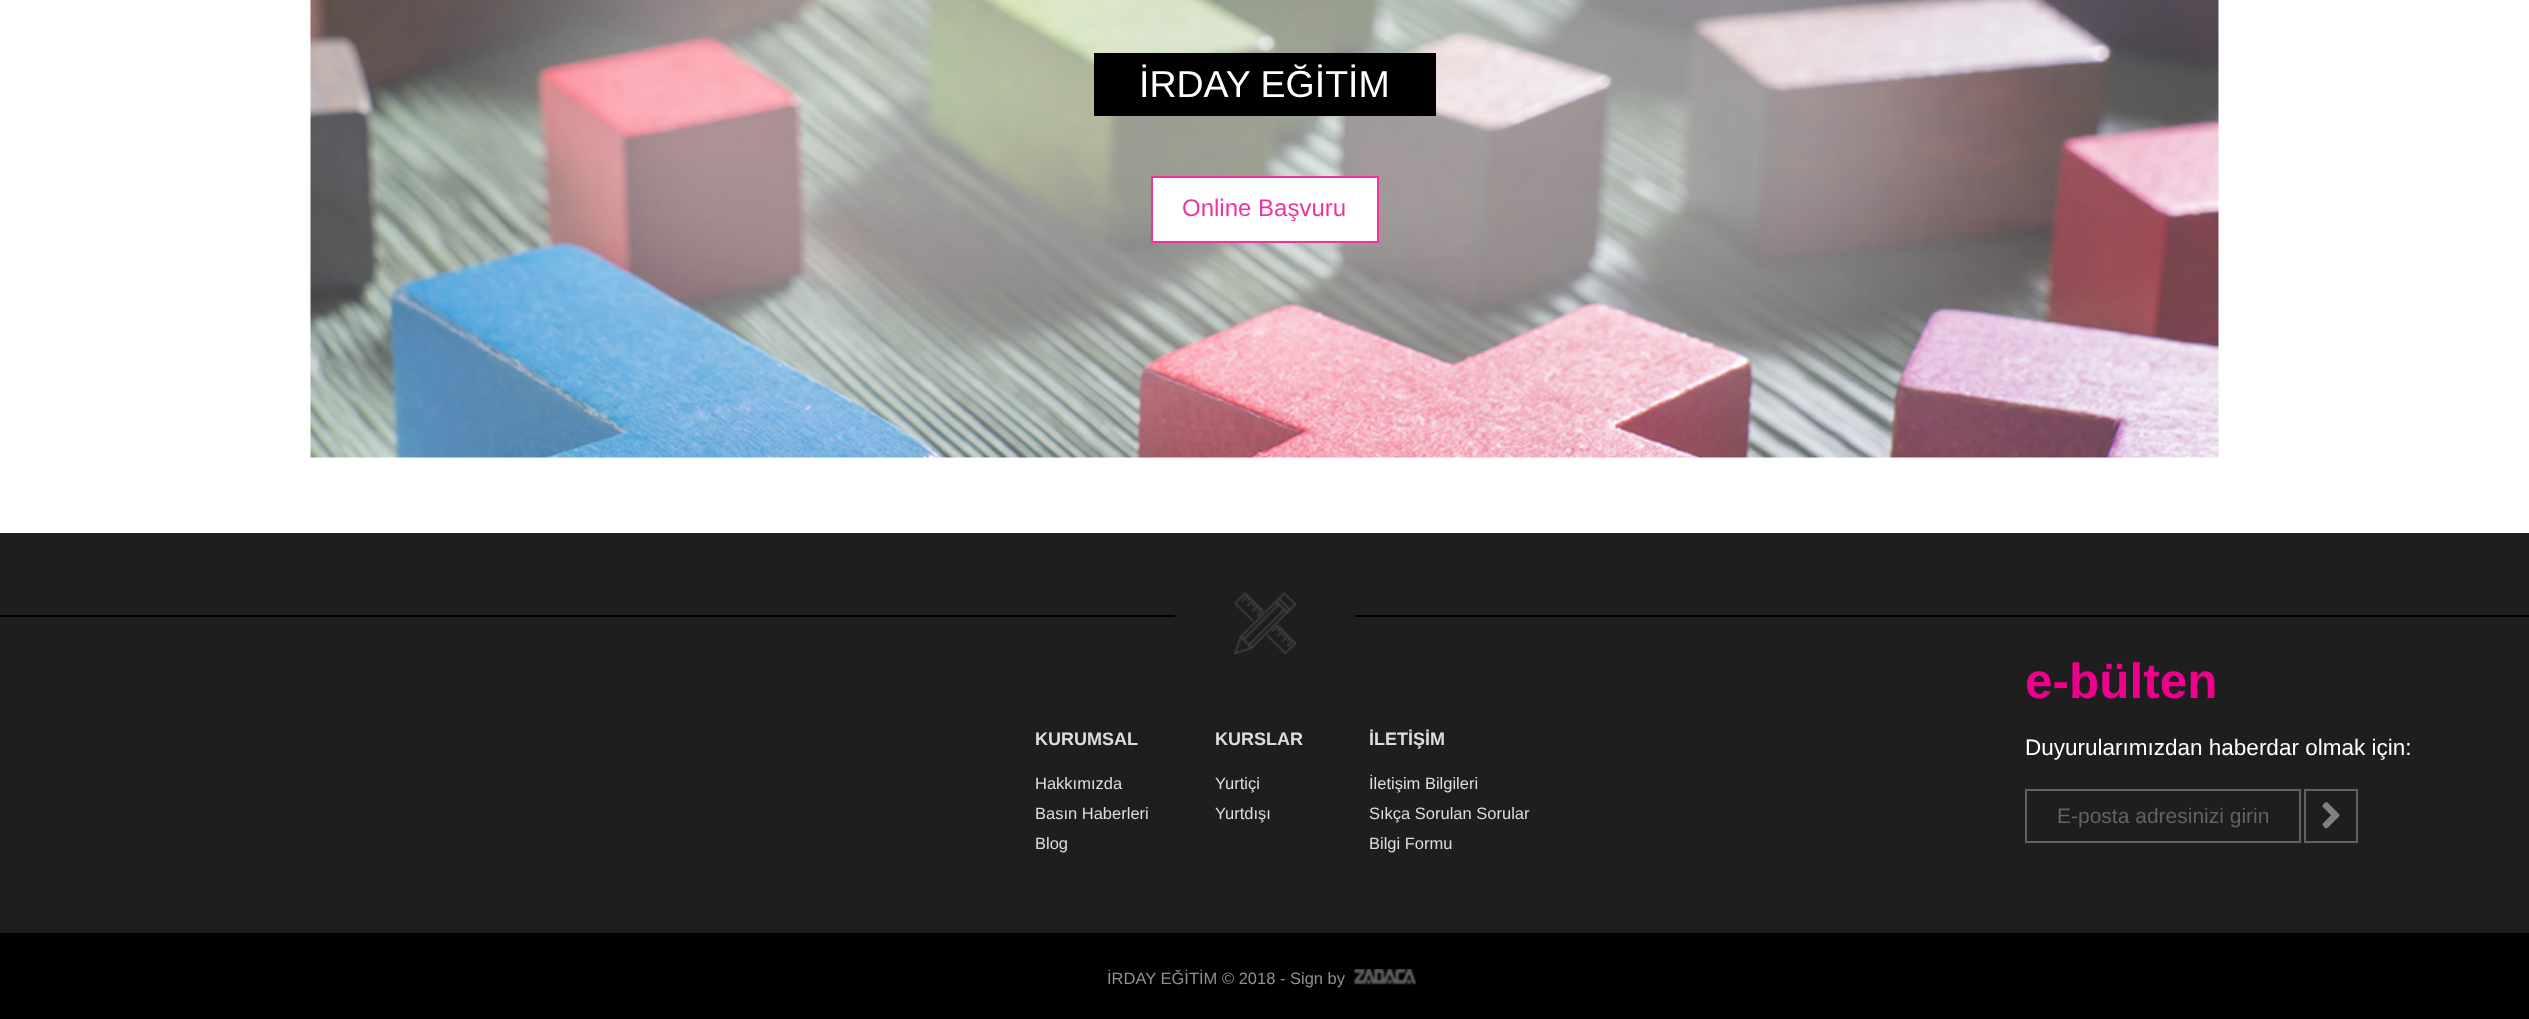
<svg xmlns="http://www.w3.org/2000/svg" xmlns:xlink="http://www.w3.org/1999/xlink" width="2529" height="1019" viewBox="0 0 2529 1019">
<style>
.cls-1{font:37.5px Liberation Sans;fill:#ffffff}
.cls-2{font:24px Liberation Sans;fill:#f033a3}
.cls-3{font:bold 18px Liberation Sans;fill:#dddddd}
.cls-4{font:16.5px Liberation Sans;fill:#dddddd}
.cls-5{font:bold 49.5px Liberation Sans;fill:#ec008c}
.cls-6{font:22.5px Liberation Sans;fill:#ffffff}
.cls-7{font:21px Liberation Sans;fill:#626262}
.cls-8{font:16.5px Liberation Sans;fill:#92908d}
</style>
<rect width="100%" height="100%" fill="#ffffff"/>
<image xlink:href="image0.png" x="310" y="0" width="1909" height="458"/>
<rect fill="#000000" x="1094" y="53" width="342" height="63"/>
<rect fill="#ffffff" stroke="#f033a3" stroke-width="2" x="1152" y="177" width="226" height="65"/>
<rect fill="#1e1e1e" x="0" y="533" width="2529" height="400"/>
<rect fill="#000000" x="0" y="615" width="2529" height="2"/>
<rect fill="#1e1e1e" x="1175" y="615" width="180" height="2"/>
<image xlink:href="image1.png" x="1234" y="592" width="62" height="62"/>
<rect fill="none" stroke="#626262" stroke-width="2" x="2026" y="790" width="274" height="52"/>
<rect fill="none" stroke="#626262" stroke-width="2" x="2305" y="790" width="52" height="52"/>
<image xlink:href="image2.png" x="2322" y="802" width="18" height="27"/>
<rect fill="#000000" x="0" y="933" width="2529" height="86"/>
<image xlink:href="image3.png" x="1354" y="969" width="62" height="16"/>
<text class="cls-1" x="1139" y="97">İRDAY EĞİTİM</text>
<text class="cls-2" x="1182" y="216">Online Başvuru</text>
<text class="cls-3" x="1035" y="745">KURUMSAL</text>
<text class="cls-4"><tspan x="1035" y="789">Hakkımızda</tspan><tspan x="1035" y="819">Basın Haberleri</tspan><tspan x="1035" y="849">Blog</tspan></text>
<text class="cls-3" x="1215" y="745">KURSLAR</text>
<text class="cls-4"><tspan x="1215" y="789">Yurtiçi</tspan><tspan x="1215" y="819">Yurtdışı</tspan></text>
<text class="cls-3" x="1369" y="745">İLETİŞİM</text>
<text class="cls-4"><tspan x="1369" y="789">İletişim Bilgileri</tspan><tspan x="1369" y="819">Sıkça Sorulan Sorular</tspan><tspan x="1369" y="849">Bilgi Formu</tspan></text>
<text class="cls-5" x="2025" y="698">e-bülten</text>
<text class="cls-6" x="2025" y="755">Duyurularımızdan haberdar olmak için:</text>
<text class="cls-7" x="2057" y="823">E-posta adresinizi girin</text>
<text class="cls-8" x="1107" y="984">İRDAY EĞİTİM © 2018 - Sign by</text>
</svg>
